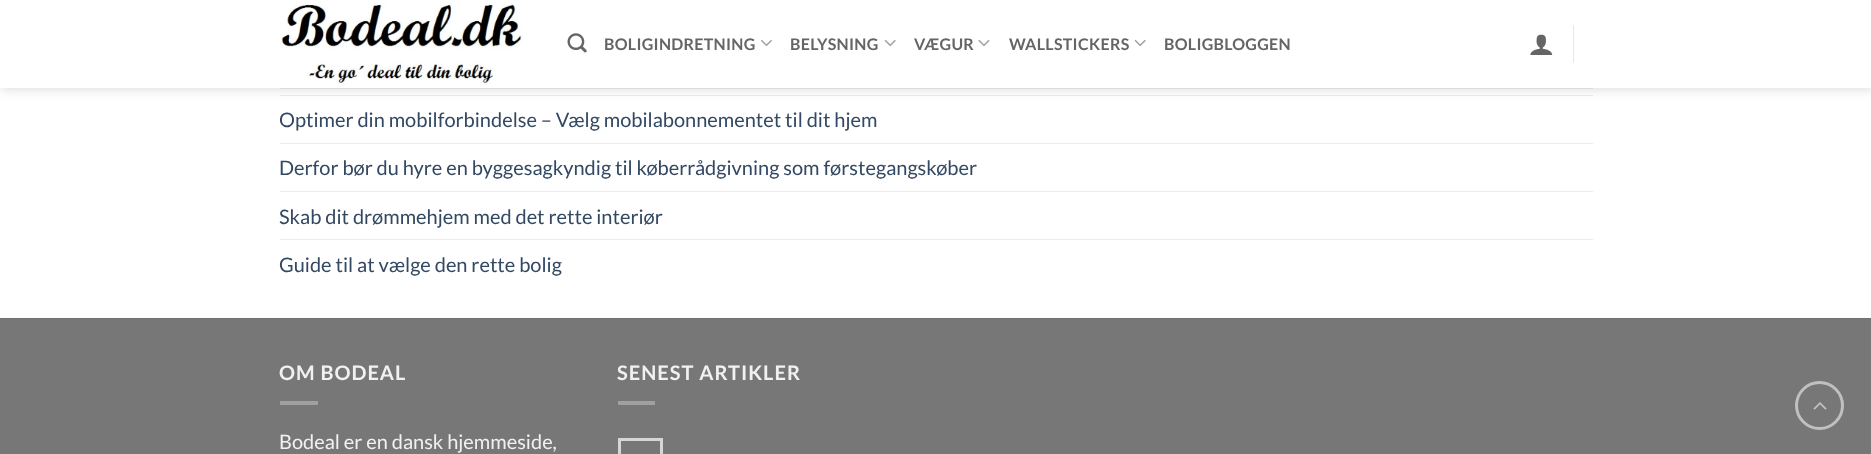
<svg xmlns="http://www.w3.org/2000/svg" xmlns:xlink="http://www.w3.org/1999/xlink" width="1871" height="454" viewBox="0 0 1871 454">
<style>
.cls-1{font:bold 16px Lato;letter-spacing:0.3px;fill:#656565}
.cls-2{font:20px Lato;fill:#334862}
.cls-3{font:bold 20px Lato;letter-spacing:1px;fill:#f1f1f1}
.cls-4{font:20px Lato;fill:#f1f1f1}
</style>
<defs>
<clipPath id="clip1"><path d="M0 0H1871V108H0ZM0 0H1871V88H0Z" clip-rule="evenodd"/></clipPath>
</defs>
<rect width="100%" height="100%" fill="#ffffff"/>
<rect fill="#e6e6e6" x="280" y="24" width="1" height="4"/>
<rect fill="#ececec" x="280" y="95" width="1313" height="1"/>
<g clip-path="url(#clip1)">
<rect fill="#000000" fill-opacity="0.15" filter="blur(6px)" x="1" y="1" width="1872" height="88"/>
</g>
<rect fill="#ffffff" fill-opacity="0.9" x="0" y="24" width="1871" height="64"/>
<image xlink:href="image0.png" x="281" y="2" width="248" height="83"/>
<image xlink:href="image1.png" x="567" y="33" width="20" height="20"/>
<image xlink:href="image2.png" x="760" y="39" width="12" height="8"/>
<image xlink:href="image3.png" x="884" y="39" width="12" height="8"/>
<image xlink:href="image4.png" x="978" y="39" width="12" height="8"/>
<image xlink:href="image3.png" x="1134" y="39" width="12" height="8"/>
<image xlink:href="image5.png" x="1530" y="34" width="23" height="21"/>
<rect fill="#e6e6e6" x="1573" y="25" width="1" height="38"/>
<rect fill="#dbdbdb" x="280" y="88" width="1313" height="1"/>
<rect fill="#ececec" x="280" y="143" width="1313" height="1"/>
<rect fill="#ececec" x="280" y="191" width="1313" height="1"/>
<rect fill="#ececec" x="280" y="239" width="1313" height="1"/>
<rect fill="#777777" x="0" y="319" width="1871" height="135"/>
<rect fill="#717171" x="0" y="318" width="1871" height="1"/>
<rect fill="#a0a0a0" x="280" y="401" width="38" height="4"/>
<rect fill="#a0a0a0" x="618" y="401" width="37" height="4"/>
<rect fill="none" stroke="#d6d6d6" stroke-width="3" x="619.5" y="439.5" width="42" height="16"/>
<circle fill="none" stroke="#c0c0c0" stroke-width="3" cx="1819.5" cy="405.5" r="23"/>
<image xlink:href="image6.png" x="1813" y="402" width="14" height="8"/>
<text class="cls-1" x="604" y="50">BOLIGINDRETNING</text>
<text class="cls-1" x="790" y="50">BELYSNING</text>
<text class="cls-1" x="914" y="50">VÆGUR</text>
<text class="cls-1" x="1009" y="50">WALLSTICKERS</text>
<text class="cls-1" x="1164" y="50">BOLIGBLOGGEN</text>
<text class="cls-2" x="279" y="127">Optimer din mobilforbindelse – Vælg mobilabonnementet til dit hjem</text>
<text class="cls-2" x="279" y="175">Derfor bør du hyre en byggesagkyndig til køberrådgivning som førstegangskøber</text>
<text class="cls-2" x="279" y="224">Skab dit drømmehjem med det rette interiør</text>
<text class="cls-2" x="279" y="272">Guide til at vælge den rette bolig</text>
<text class="cls-3" x="279" y="380">OM BODEAL</text>
<text class="cls-4" x="279" y="449">Bodeal er en dansk hjemmeside,</text>
<text class="cls-3" x="617" y="380">SENEST ARTIKLER</text>
</svg>
